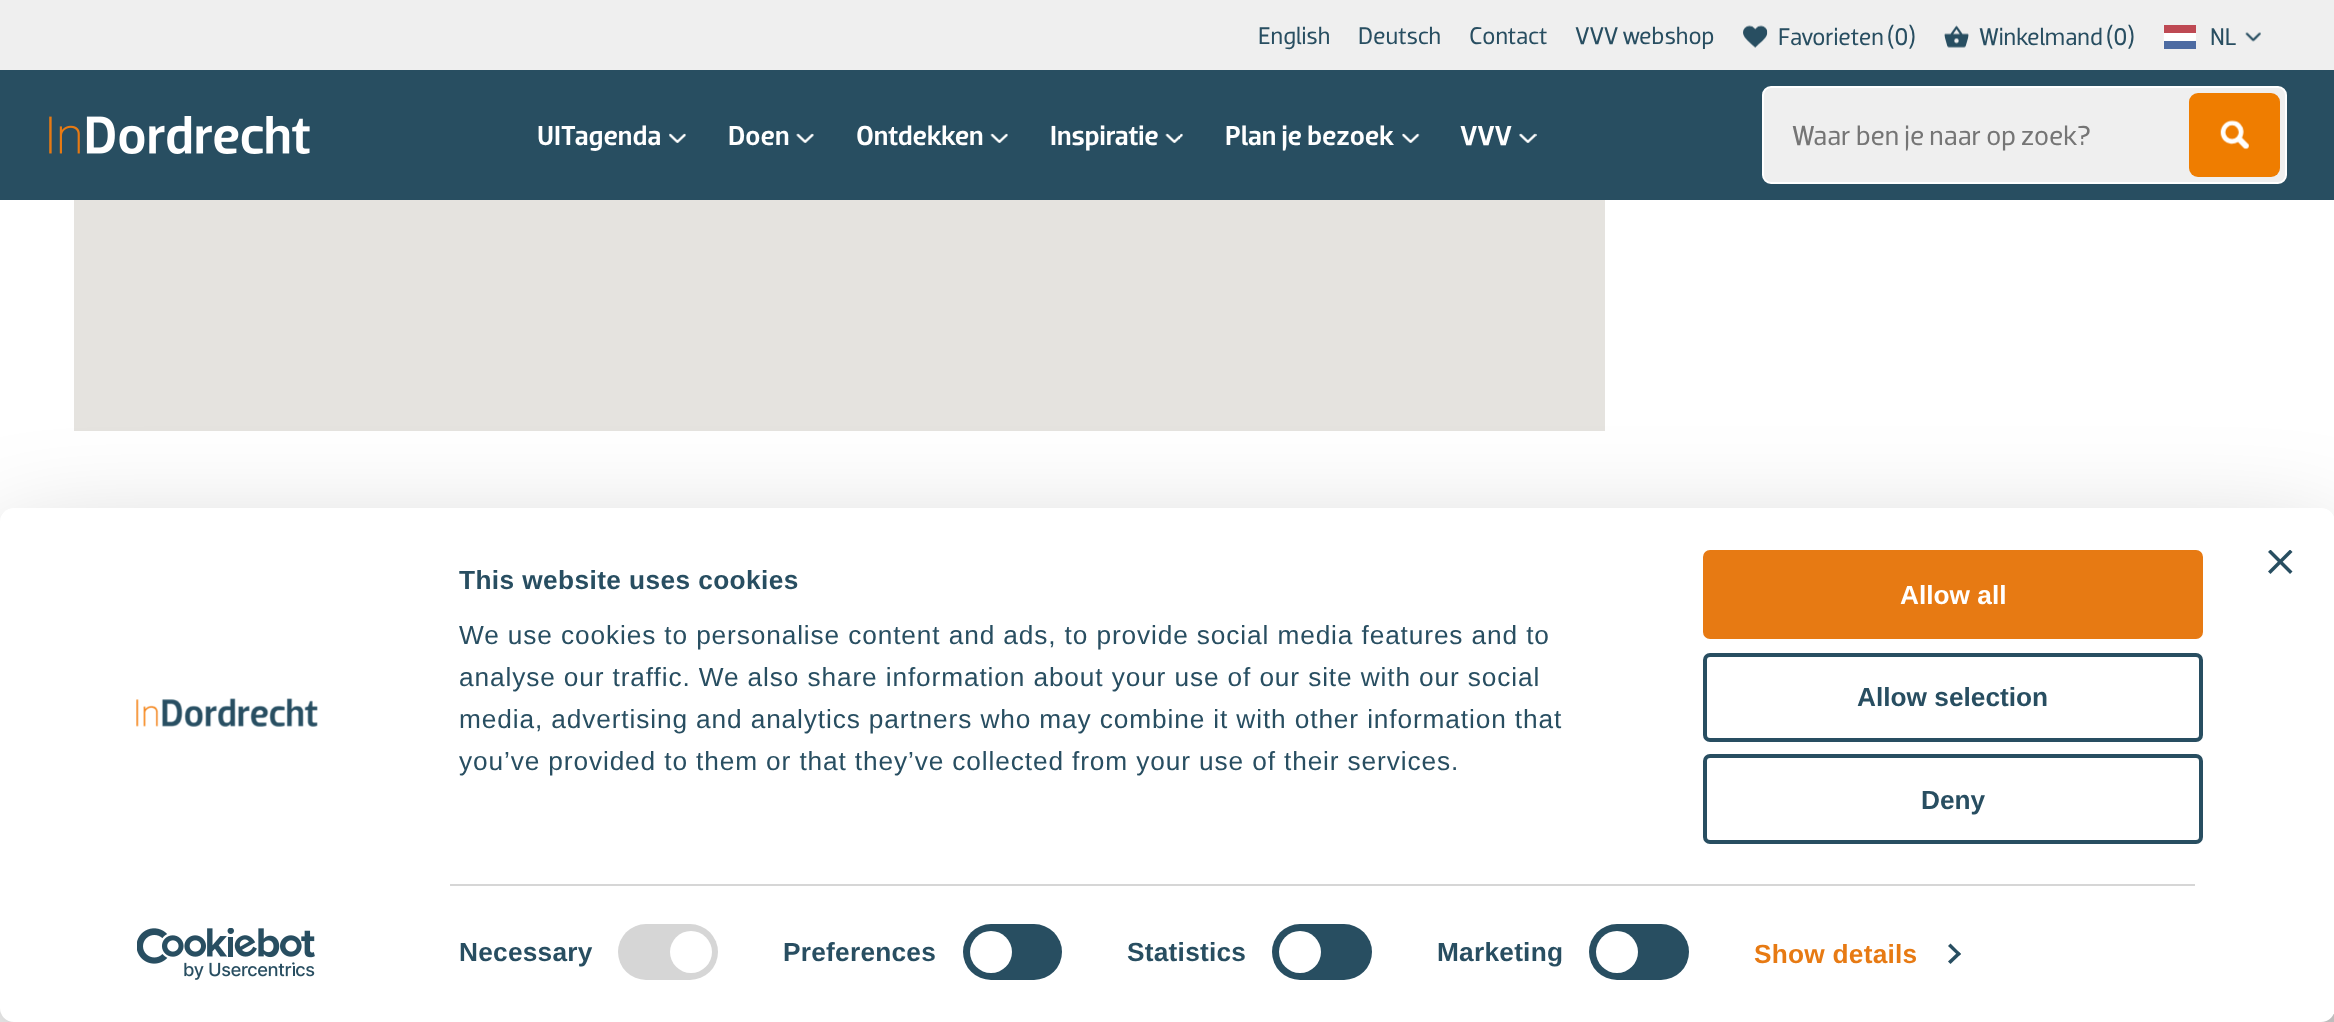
<svg xmlns="http://www.w3.org/2000/svg" xmlns:xlink="http://www.w3.org/1999/xlink" width="2334" height="1022" viewBox="0 0 2334 1022">
<style>
.cls-1{font:24.5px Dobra;fill:#284e61}
.cls-2{font:500 28px Dobra;fill:#ffffff}
.cls-3{font:28px Dobra;fill:#757575}
.cls-4{font:bold 26.25px Liberation Sans;letter-spacing:0.4px;fill:#284e61}
.cls-5{font:26.25px Liberation Sans;letter-spacing:0.88px;fill:#284e61}
.cls-6{font:bold 26.25px Liberation Sans;letter-spacing:0.25px;fill:#284e61}
.cls-7{font:bold 26.25px Liberation Sans;letter-spacing:0.25px;fill:#e77a13}
.cls-8{font:bold 26.25px Liberation Sans;fill:#ffffff}
.cls-9{font:bold 26.25px Liberation Sans;fill:#284e61}
</style>
<defs>
<linearGradient id="g1" gradientUnits="userSpaceOnUse" x1="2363" y1="591" x2="1714" y2="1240"><stop offset="0" stop-color="#808080"/><stop offset="0.5" stop-color="#ffffff"/></linearGradient>
</defs>
<rect width="100%" height="100%" fill="#ffffff"/>
<rect fill="#284e61" x="0" y="70" width="2334" height="130"/>
<rect fill="#efefef" x="0" y="0" width="2334" height="70"/>
<rect fill="#f2f2f2" x="2163" y="25" width="1" height="24"/>
<image xlink:href="image0.png" x="1743" y="25" width="25" height="23"/>
<image xlink:href="image1.png" x="1944" y="25" width="25" height="23"/>
<rect fill="#be4953" x="2164" y="25" width="32" height="8"/>
<rect fill="#ffffff" x="2164" y="33" width="32" height="8"/>
<rect fill="#4d6ba2" x="2164" y="41" width="32" height="8"/>
<image xlink:href="image2.png" x="2245" y="32" width="16" height="10"/>
<image xlink:href="image3.png" x="49" y="116" width="261" height="38"/>
<image xlink:href="image4.png" x="669" y="133" width="17" height="10"/>
<image xlink:href="image5.png" x="796" y="133" width="18" height="10"/>
<image xlink:href="image6.png" x="990" y="133" width="18" height="10"/>
<image xlink:href="image7.png" x="1165" y="133" width="18" height="10"/>
<image xlink:href="image8.png" x="1402" y="133" width="18" height="10"/>
<image xlink:href="image9.png" x="1519" y="133" width="18" height="10"/>
<rect fill="#efefef" stroke="#ffffff" stroke-width="2" x="1763" y="87" width="523" height="96" rx="8"/>
<rect fill="#ef7d00" x="2189" y="93" width="91" height="84" rx="9"/>
<image xlink:href="image10.png" x="2220" y="120" width="29" height="30"/>
<rect fill="#e5e3df" x="74" y="200" width="1531" height="231"/>
<rect fill="url(#g1)" x="2321" y="1013" width="13" height="9"/>
<rect fill="#000000" fill-opacity="0.3" filter="blur(61px)" x="0" y="560" width="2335" height="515" rx="14"/>
<rect fill="#ffffff" x="0" y="508" width="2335" height="514" rx="14"/>
<image xlink:href="image11.png" x="2268" y="550" width="25" height="24"/>
<image xlink:href="image12.png" x="136" y="698" width="182" height="29"/>
<image xlink:href="image13.png" x="137" y="928" width="178" height="52"/>
<rect fill="#d6d6d6" x="450" y="884" width="1745" height="2"/>
<rect fill="#d6d6d6" x="618" y="924" width="100" height="56" rx="28"/>
<circle fill="#ffffff" cx="691" cy="952" r="21"/>
<rect fill="#284e61" x="963" y="924" width="99" height="56" rx="28"/>
<circle fill="#ffffff" cx="991" cy="952" r="21"/>
<rect fill="#284e61" x="1272" y="924" width="100" height="56" rx="28"/>
<circle fill="#ffffff" cx="1300" cy="952" r="21"/>
<rect fill="#284e61" x="1589" y="924" width="100" height="56" rx="28"/>
<circle fill="#ffffff" cx="1617" cy="952" r="21"/>
<path fill="#284e61" d="M1950.5 943.5L1961 954L1958.5 956L1948 946Z"/>
<path fill="#284e61" d="M1958.5 951.5L1961 954L1950.5 964L1948 961.5Z"/>
<rect fill="#e77a13" stroke="#e77a13" stroke-width="4" x="1705" y="552" width="496" height="85" rx="5"/>
<rect fill="none" stroke="#284e61" stroke-width="4" x="1705" y="655" width="496" height="85" rx="5"/>
<rect fill="none" stroke="#284e61" stroke-width="4" x="1705" y="756" width="496" height="86" rx="5"/>
<text class="cls-1" x="1258" y="44">English</text>
<text class="cls-1" x="1358" y="44">Deutsch</text>
<text class="cls-1" x="1469" y="44">Contact</text>
<text class="cls-1" x="1575" y="44">VVV webshop</text>
<text class="cls-1" x="1778" y="45">Favorieten</text>
<text class="cls-1" x="1887" y="45">(0)</text>
<text class="cls-1" x="1979" y="45">Winkelmand</text>
<text class="cls-1" x="2106" y="45">(0)</text>
<text class="cls-1" x="2210" y="45">NL</text>
<text class="cls-2" x="537" y="145">UITagenda</text>
<text class="cls-2" x="728" y="145">Doen</text>
<text class="cls-2" x="856" y="145">Ontdekken</text>
<text class="cls-2" x="1050" y="145">Inspiratie</text>
<text class="cls-2" x="1225" y="145">Plan je bezoek</text>
<text class="cls-2" x="1460" y="145">VVV</text>
<text class="cls-3" x="1792" y="145">Waar ben je naar op zoek?</text>
<text class="cls-4" x="459" y="589">This website uses cookies</text>
<text class="cls-5"><tspan x="459" y="644">We use cookies to personalise content and ads, to provide social media features and to</tspan><tspan x="459" y="686">analyse our traffic. We also share information about your use of our site with our social</tspan><tspan x="459" y="728">media, advertising and analytics partners who may combine it with other information that</tspan><tspan x="459" y="770">you’ve provided to them or that they’ve collected from your use of their services.</tspan></text>
<text class="cls-6" x="459" y="961">Necessary</text>
<text class="cls-6" x="783" y="961">Preferences</text>
<text class="cls-6" x="1127" y="961">Statistics</text>
<text class="cls-6" x="1437" y="961">Marketing</text>
<text class="cls-7" x="1754" y="963">Show details</text>
<text class="cls-8" x="1900" y="604">Allow all</text>
<text class="cls-9" x="1857" y="706">Allow selection</text>
<text class="cls-9" x="1921" y="809">Deny</text>
</svg>
